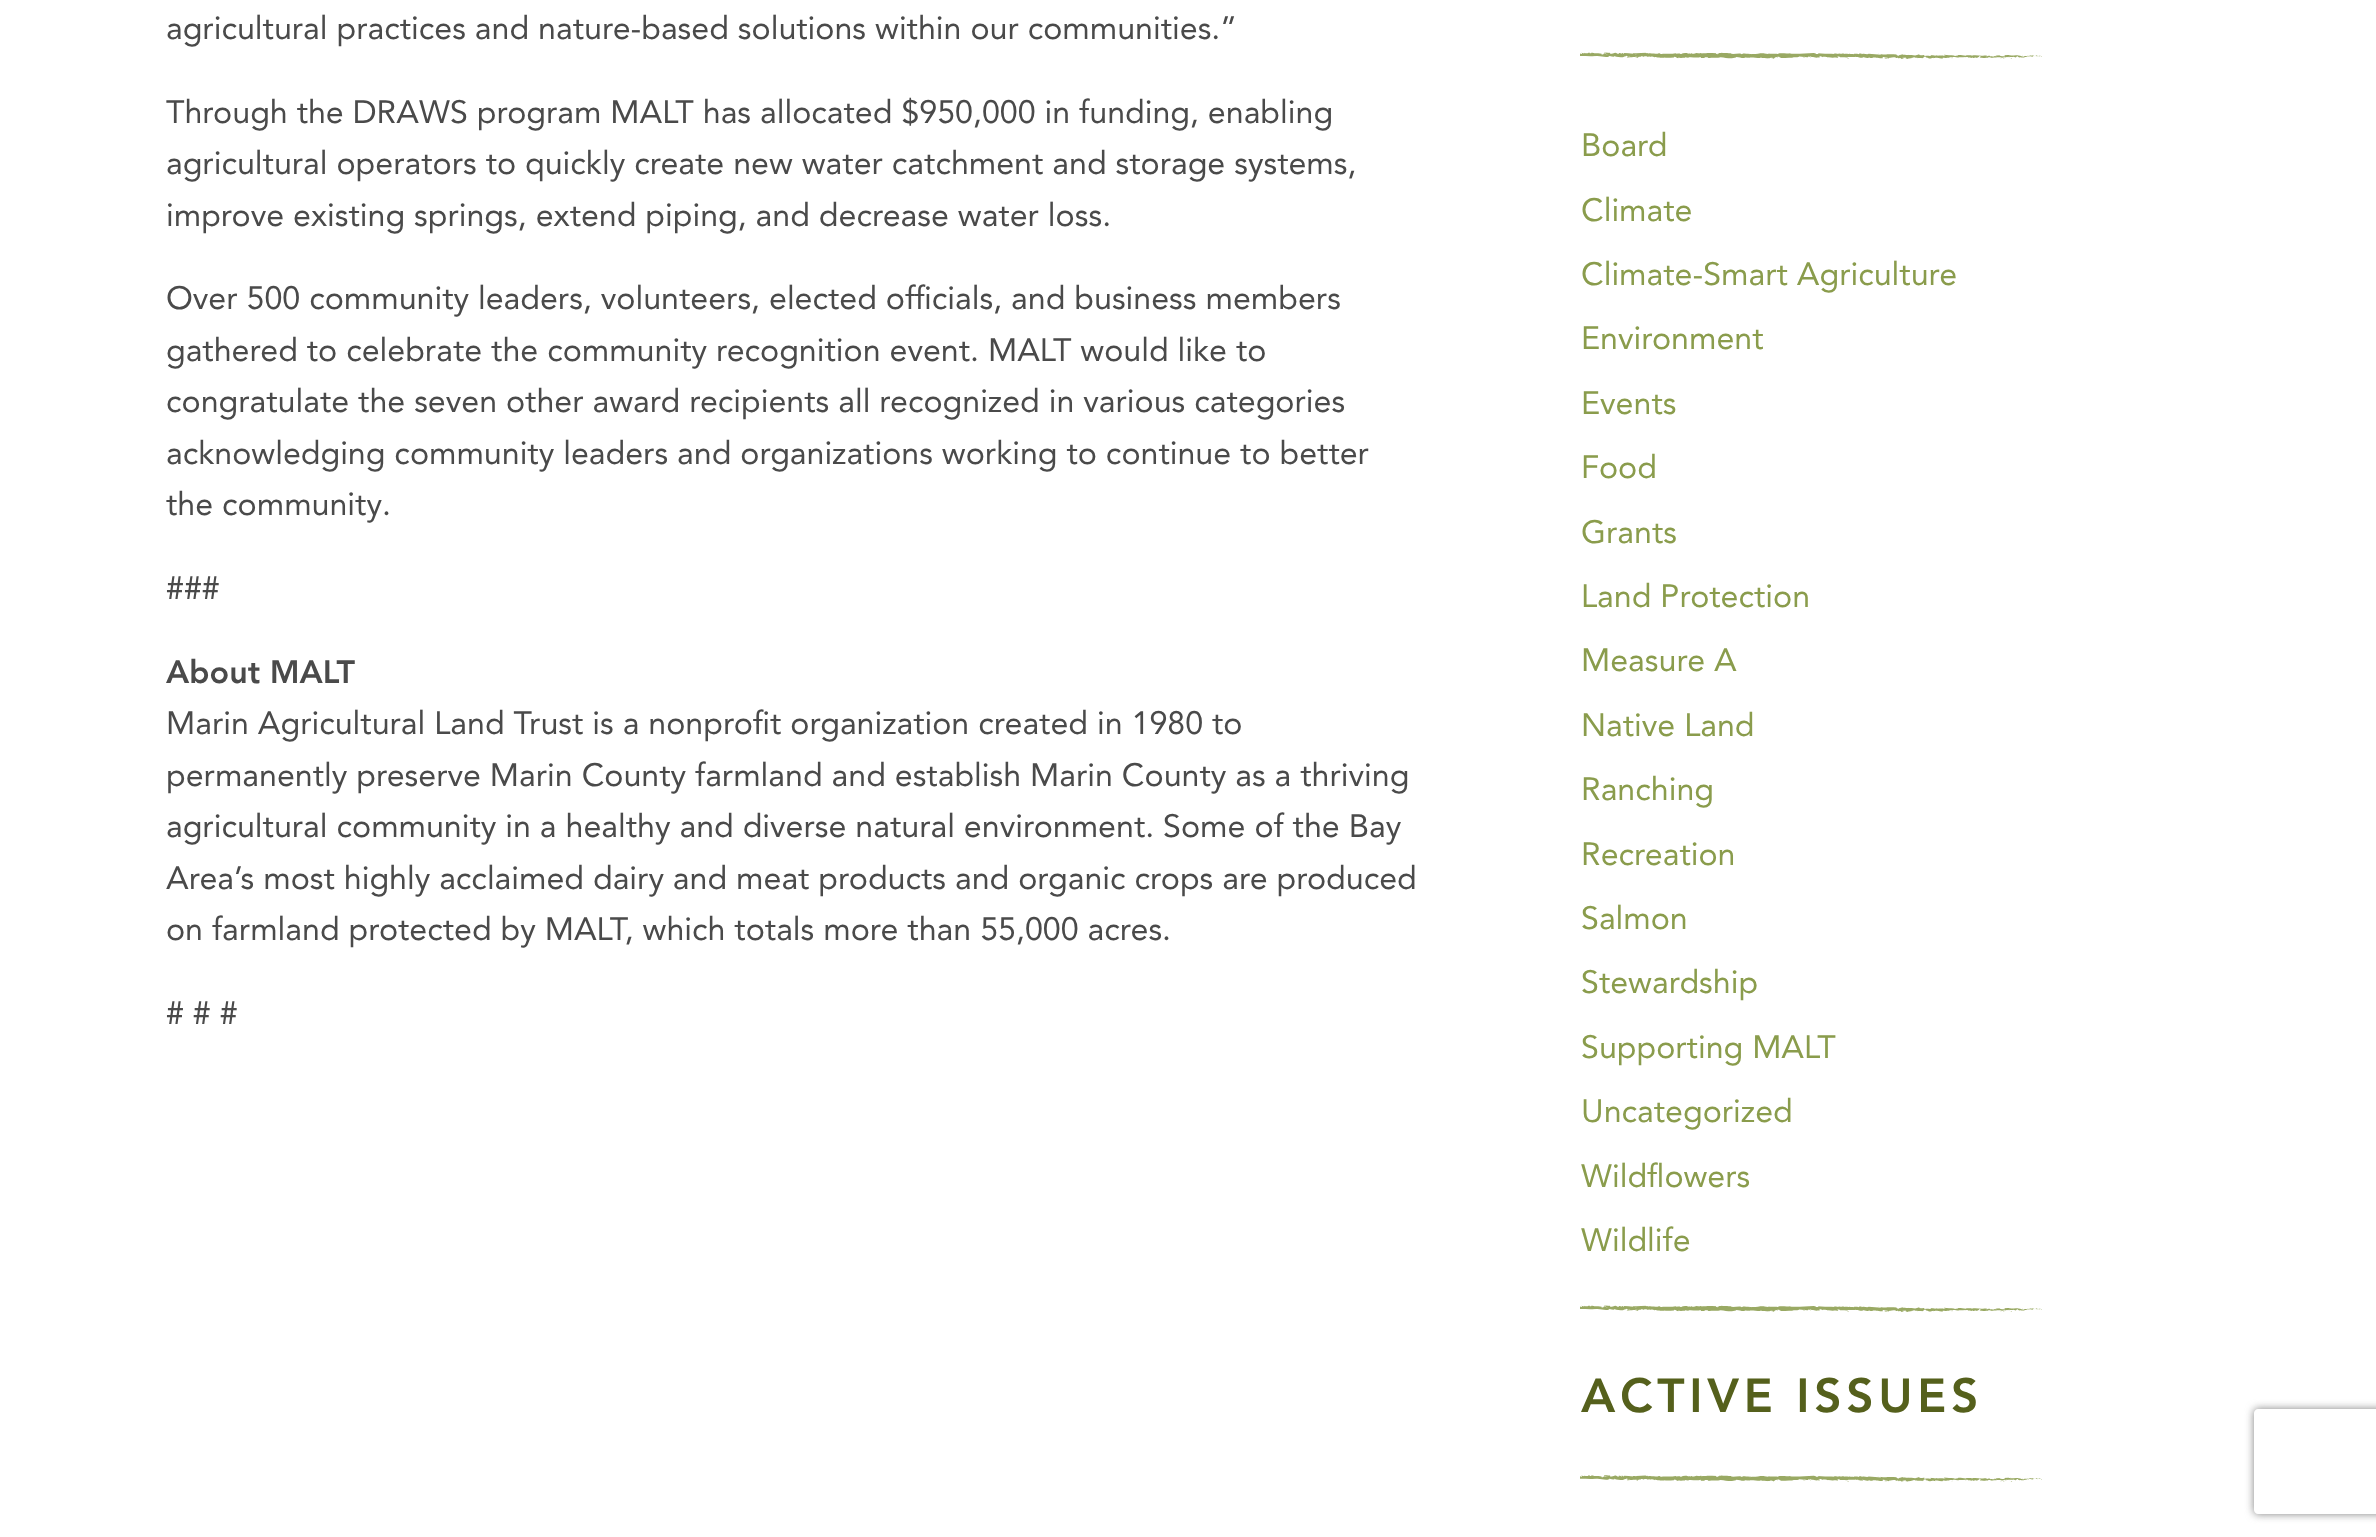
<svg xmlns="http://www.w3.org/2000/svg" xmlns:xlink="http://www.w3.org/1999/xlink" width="2376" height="1537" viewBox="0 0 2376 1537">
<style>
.cls-1{font:32.2px Avenir;fill:#4a4a4a}
.cls-2{font:32.2px 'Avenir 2';fill:#4a4a4a}
.cls-3{font:32.2px Avenir;fill:#8a9c4c}
.cls-4{font:47.5px 'Avenir 2';letter-spacing:4.75px;fill:#55601c}
</style>
<defs>
<clipPath id="clip1"><path d="M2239 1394H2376V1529H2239ZM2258 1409H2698C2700 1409 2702 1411 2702 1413V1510C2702 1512 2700 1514 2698 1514H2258C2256 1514 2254 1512 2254 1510V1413C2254 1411 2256 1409 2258 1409Z" clip-rule="evenodd"/></clipPath>
</defs>
<rect width="100%" height="100%" fill="#ffffff"/>
<image xlink:href="image0.png" x="1580" y="1305" width="462" height="7"/>
<image xlink:href="image0.png" x="1580" y="52" width="462" height="7"/>
<image xlink:href="image1.png" x="1580" y="1475" width="462" height="7"/>
<g clip-path="url(#clip1)">
<rect fill="#808080" filter="blur(4.5px)" x="2254" y="1409" width="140" height="105" rx="4"/>
</g>
<text class="cls-1" x="166" y="39">agricultural practices and nature-based solutions within our communities.”</text>
<text class="cls-1"><tspan x="166" y="123">Through the DRAWS program MALT has allocated $950,000 in funding, enabling</tspan><tspan x="166" y="174">agricultural operators to quickly create new water catchment and storage systems,</tspan><tspan x="166" y="226">improve existing springs, extend piping, and decrease water loss.</tspan></text>
<text class="cls-1"><tspan x="166" y="309">Over 500 community leaders, volunteers, elected officials, and business members</tspan><tspan x="166" y="361">gathered to celebrate the community recognition event. MALT would like to</tspan><tspan x="166" y="412">congratulate the seven other award recipients all recognized in various categories</tspan><tspan x="166" y="464">acknowledging community leaders and organizations working to continue to better</tspan><tspan x="166" y="515">the community.</tspan></text>
<text class="cls-1" x="166" y="599">###</text>
<text class="cls-2" x="166" y="683">About MALT</text>
<text class="cls-1"><tspan x="166" y="734">Marin Agricultural Land Trust is a nonprofit organization created in 1980 to</tspan><tspan x="166" y="786">permanently preserve Marin County farmland and establish Marin County as a thriving</tspan><tspan x="166" y="837">agricultural community in a healthy and diverse natural environment. Some of the Bay</tspan><tspan x="166" y="889">Area’s most highly acclaimed dairy and meat products and organic crops are produced</tspan><tspan x="166" y="940">on farmland protected by MALT, which totals more than 55,000 acres.</tspan></text>
<text class="cls-1" x="166" y="1024"># # #</text>
<text class="cls-3" x="1581" y="156">Board</text>
<text class="cls-3"><tspan x="1581" y="221">Climate</tspan><tspan x="1581" y="285">Climate-Smart Agriculture</tspan><tspan x="1581" y="349">Environment</tspan></text>
<text class="cls-3"><tspan x="1581" y="414">Events</tspan><tspan x="1581" y="478">Food</tspan></text>
<text class="cls-3"><tspan x="1581" y="543">Grants</tspan><tspan x="1581" y="607">Land Protection</tspan><tspan x="1581" y="671">Measure A</tspan></text>
<text class="cls-3"><tspan x="1581" y="736">Native Land</tspan><tspan x="1581" y="800">Ranching</tspan></text>
<text class="cls-3"><tspan x="1581" y="865">Recreation</tspan><tspan x="1581" y="929">Salmon</tspan><tspan x="1581" y="993">Stewardship</tspan></text>
<text class="cls-3"><tspan x="1581" y="1058">Supporting MALT</tspan><tspan x="1581" y="1122">Uncategorized</tspan></text>
<text class="cls-3"><tspan x="1581" y="1187">Wildflowers</tspan><tspan x="1581" y="1251">Wildlife</tspan></text>
<text class="cls-4" x="1581" y="1412">ACTIVE ISSUES</text>
</svg>
